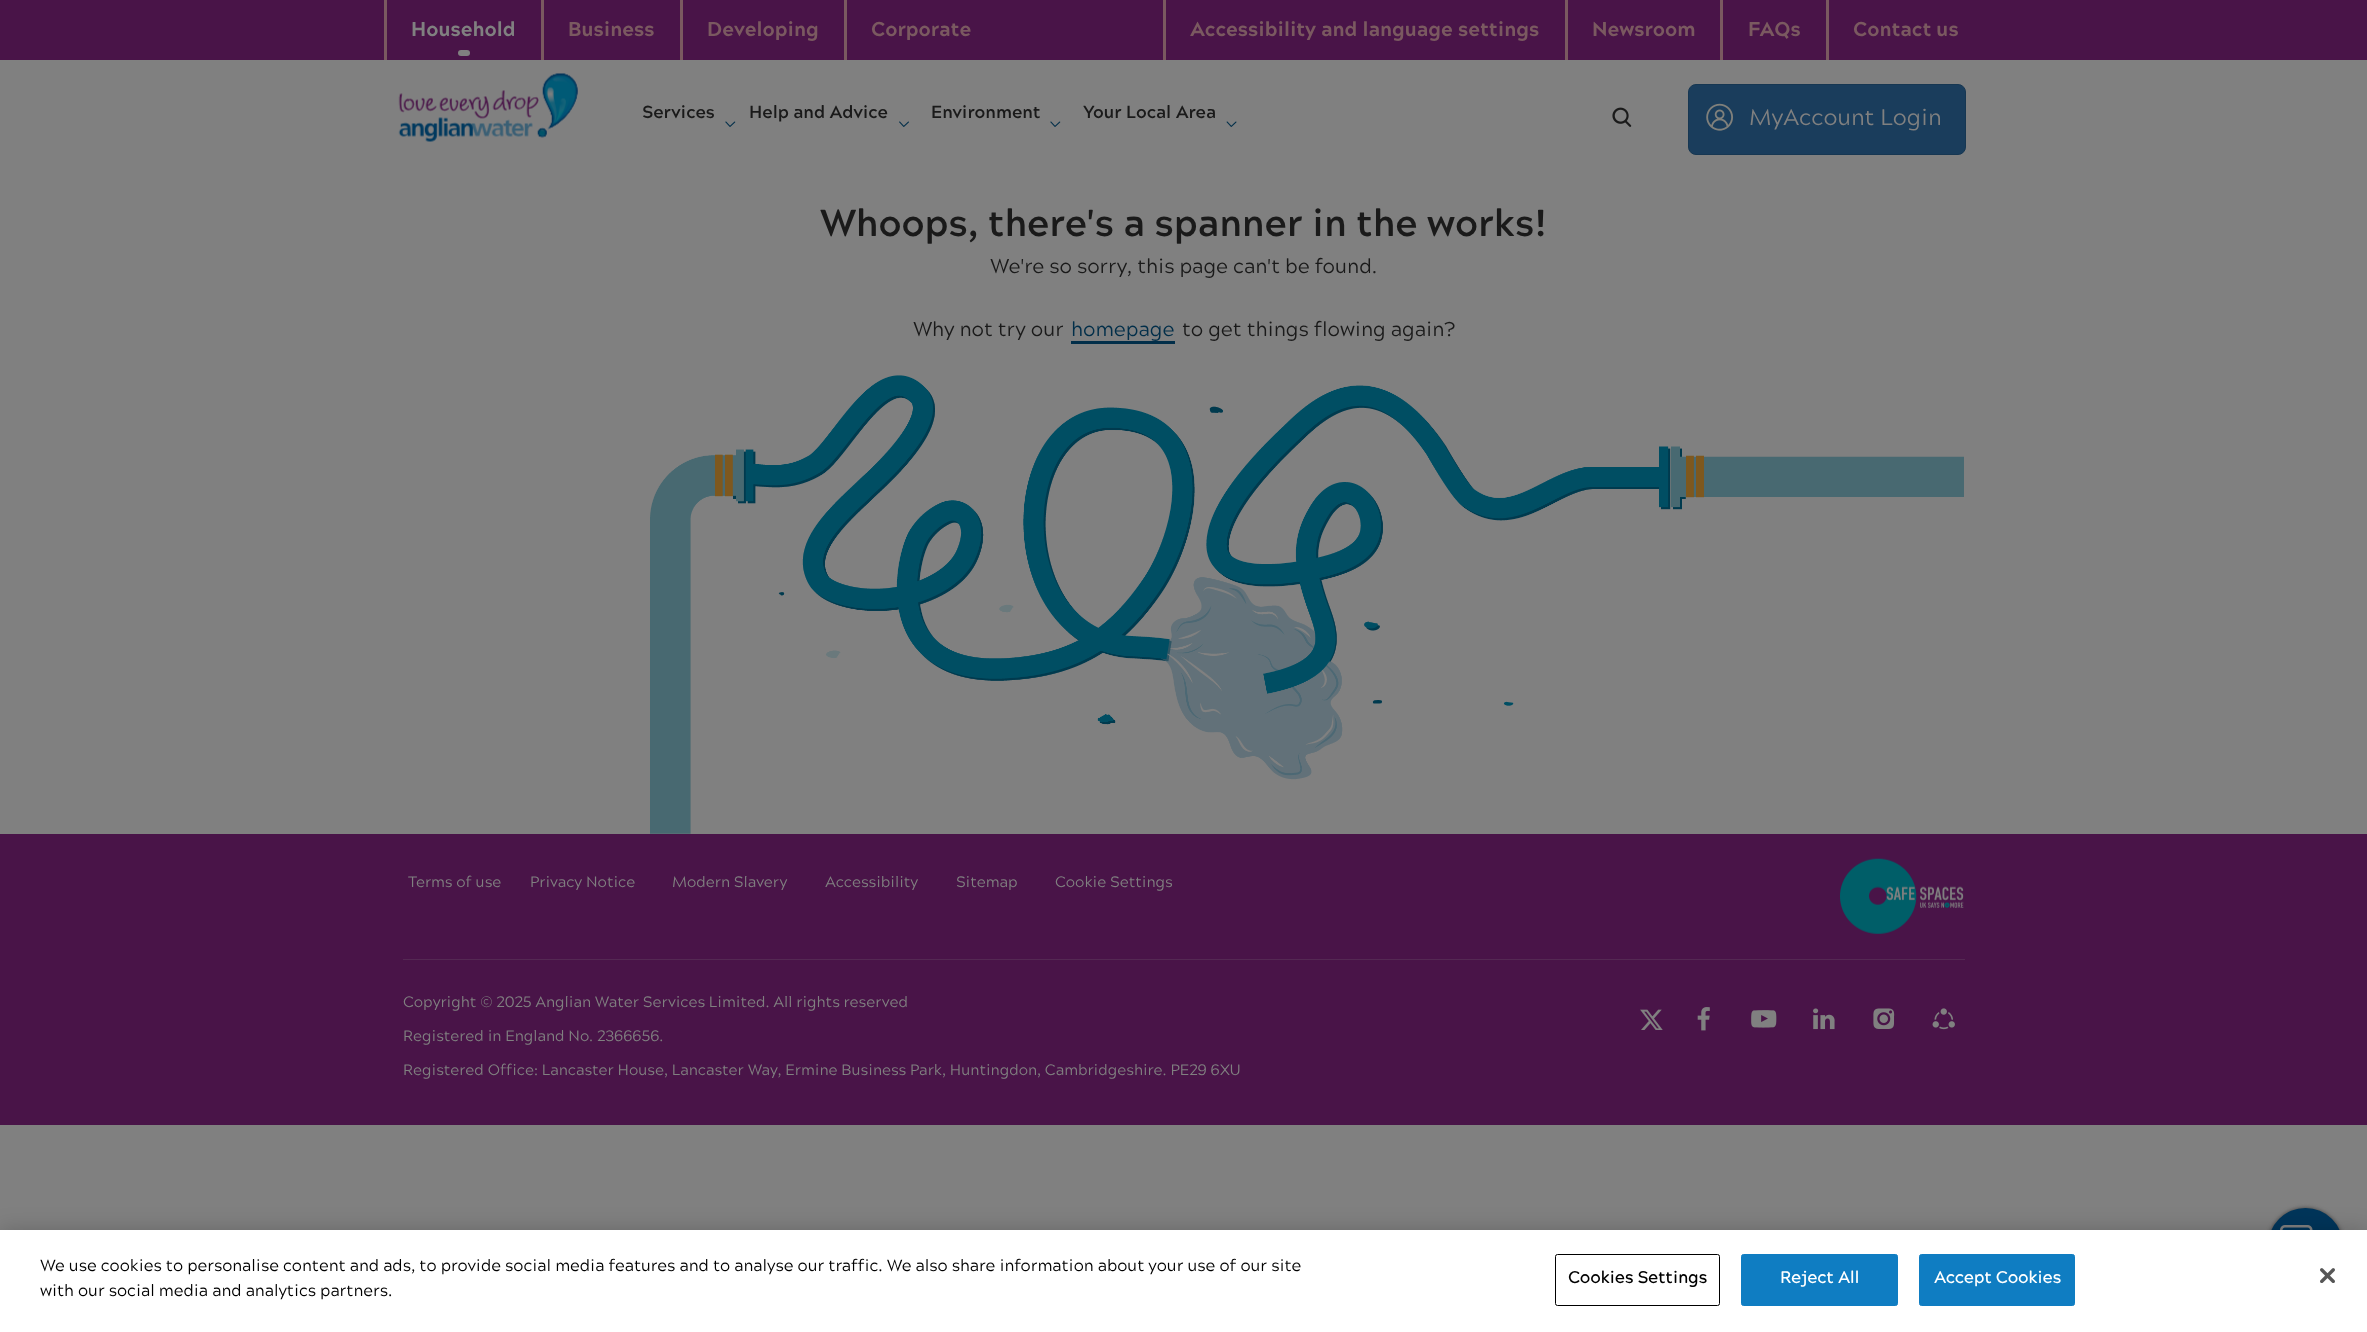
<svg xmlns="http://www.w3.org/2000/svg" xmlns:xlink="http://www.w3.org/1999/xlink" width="2367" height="1332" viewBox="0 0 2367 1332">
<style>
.cls-1{font:20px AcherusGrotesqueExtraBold;fill:#808080}
.cls-2{font:20px AcherusGrotesqueExtraBold;fill:#7a5960}
.cls-3{font:17.5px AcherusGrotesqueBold;fill:#1a1a1a}
.cls-4{font:22.5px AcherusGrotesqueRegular;fill:#808080}
.cls-5{font:37.6px AcherusGrotesqueBold;fill:#1a1a1a}
.cls-6{font:20px AcherusGrotesqueRegular;fill:#1a1a1a}
.cls-7{font:20px AcherusGrotesqueRegular;fill:#012e49}
.cls-8{font:15px AcherusGrotesqueRegular;fill:#808080}
.cls-9{font:16.25px AcherusGrotesqueRegular;fill:#000000}
.cls-10{font:bold 16.25px AcherusGrotesqueRegular;letter-spacing:0.2px;fill:#000000}
.cls-11{font:bold 16.25px AcherusGrotesqueRegular;letter-spacing:0.2px;fill:#ffffff}
</style>
<rect width="100%" height="100%" fill="#808080"/>
<rect fill="#491448" x="0" y="0" width="2367" height="60"/>
<rect fill="#7a5960" x="384" y="0" width="3" height="60"/>
<rect fill="#808080" x="458" y="50" width="12" height="6" rx="3"/>
<rect fill="#7a5960" x="541" y="0" width="3" height="60"/>
<rect fill="#7a5960" x="680" y="0" width="3" height="60"/>
<rect fill="#7a5960" x="844" y="0" width="3" height="60"/>
<rect fill="#7a5960" x="1163" y="0" width="3" height="60"/>
<rect fill="#7a5960" x="1565" y="0" width="3" height="60"/>
<rect fill="#7a5960" x="1720" y="0" width="3" height="60"/>
<rect fill="#7a5960" x="1826" y="0" width="3" height="60"/>
<image xlink:href="image0.png" x="398" y="73" width="180" height="69"/>
<image xlink:href="image1.png" x="725" y="121" width="11" height="6"/>
<image xlink:href="image2.png" x="899" y="121" width="10" height="6"/>
<image xlink:href="image1.png" x="1050" y="121" width="11" height="6"/>
<image xlink:href="image3.png" x="1226" y="121" width="11" height="6"/>
<image xlink:href="image4.png" x="1612" y="107" width="20" height="20"/>
<rect fill="#1a3d5c" stroke="#173752" x="1688.5" y="84.5" width="277" height="70" rx="7.5"/>
<image xlink:href="image5.png" x="1706" y="103" width="28" height="28"/>
<rect fill="#012e49" x="1071" y="341" width="104" height="3"/>
<image xlink:href="image6.png" x="650" y="375" width="1314" height="459"/>
<rect fill="#491448" x="0" y="834" width="2367" height="291"/>
<image xlink:href="image7.png" x="1840" y="858" width="124" height="76"/>
<rect fill="#542953" x="403" y="959" width="1562" height="1"/>
<image xlink:href="image8.png" x="1640" y="1009" width="23" height="21"/>
<image xlink:href="image9.png" x="1697" y="1007" width="13" height="24"/>
<image xlink:href="image10.png" x="1751" y="1010" width="26" height="18"/>
<image xlink:href="image11.png" x="1813" y="1008" width="22" height="22"/>
<image xlink:href="image12.png" x="1873" y="1008" width="22" height="21"/>
<image xlink:href="image13.png" x="1932" y="1008" width="23" height="22"/>
<rect fill="#404040" filter="blur(2px)" x="2268" y="1208" width="75" height="75" rx="37.5"/>
<circle fill="#01355a" cx="2305.5" cy="1245.5" r="37.5"/>
<image xlink:href="image15.png" x="2280" y="1225" width="33" height="5"/>
<rect fill="#000000" fill-opacity="0.2" filter="blur(11px)" x="0" y="1230" width="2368" height="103"/>
<rect fill="#ffffff" x="0" y="1230" width="2367" height="102"/>
<rect fill="none" stroke="#000000" x="1555.5" y="1254.5" width="164" height="51" rx="2"/>
<rect fill="#0f7dc2" stroke="#0f7dc2" x="1741.5" y="1254.5" width="156" height="51" rx="2"/>
<rect fill="#0f7dc2" stroke="#0f7dc2" x="1919.5" y="1254.5" width="155" height="51" rx="2"/>
<image xlink:href="image14.png" x="2320" y="1268" width="15" height="15"/>
<text class="cls-1" x="411" y="36">Household</text>
<text class="cls-2" x="568" y="36">Business</text>
<text class="cls-2" x="707" y="36">Developing</text>
<text class="cls-2" x="871" y="36">Corporate</text>
<text class="cls-2" x="1190" y="36">Accessibility and language settings</text>
<text class="cls-2" x="1592" y="36">Newsroom</text>
<text class="cls-2" x="1748" y="36">FAQs</text>
<text class="cls-2" x="1853" y="36">Contact us</text>
<text class="cls-3" x="642" y="118">Services</text>
<text class="cls-3" x="749" y="118">Help and Advice</text>
<text class="cls-3" x="931" y="118">Environment</text>
<text class="cls-3" x="1083" y="118">Your Local Area</text>
<text class="cls-4" x="1749" y="125">MyAccount Login</text>
<text class="cls-5" x="820" y="236">Whoops, there's a spanner in the works!</text>
<text class="cls-6" x="990" y="273">We're so sorry, this page can't be found.</text>
<text class="cls-6" x="913" y="336">Why not try our</text>
<text class="cls-7" x="1071" y="336">homepage</text>
<text class="cls-6" x="1182" y="336">to get things flowing again?</text>
<text class="cls-8" x="408" y="887">Terms of use</text>
<text class="cls-8" x="530" y="887">Privacy Notice</text>
<text class="cls-8" x="672" y="887">Modern Slavery</text>
<text class="cls-8" x="825" y="887">Accessibility</text>
<text class="cls-8" x="956" y="887">Sitemap</text>
<text class="cls-8" x="1055" y="887">Cookie Settings</text>
<text class="cls-8" x="403" y="1007">Copyright © 2025 Anglian Water Services Limited. All rights reserved</text>
<text class="cls-8" x="403" y="1041">Registered in England No. 2366656.</text>
<text class="cls-8" x="403" y="1075">Registered Office: Lancaster House, Lancaster Way, Ermine Business Park, Huntingdon, Cambridgeshire. PE29 6XU</text>
<text class="cls-9"><tspan x="40" y="1271">We use cookies to personalise content and ads, to provide social media features and to analyse our traffic. We also share information about your use of our site</tspan><tspan x="40" y="1296">with our social media and analytics partners.</tspan></text>
<text class="cls-10" x="1568" y="1283">Cookies Settings</text>
<text class="cls-11" x="1780" y="1283">Reject All</text>
<text class="cls-11" x="1934" y="1283">Accept Cookies</text>
</svg>
